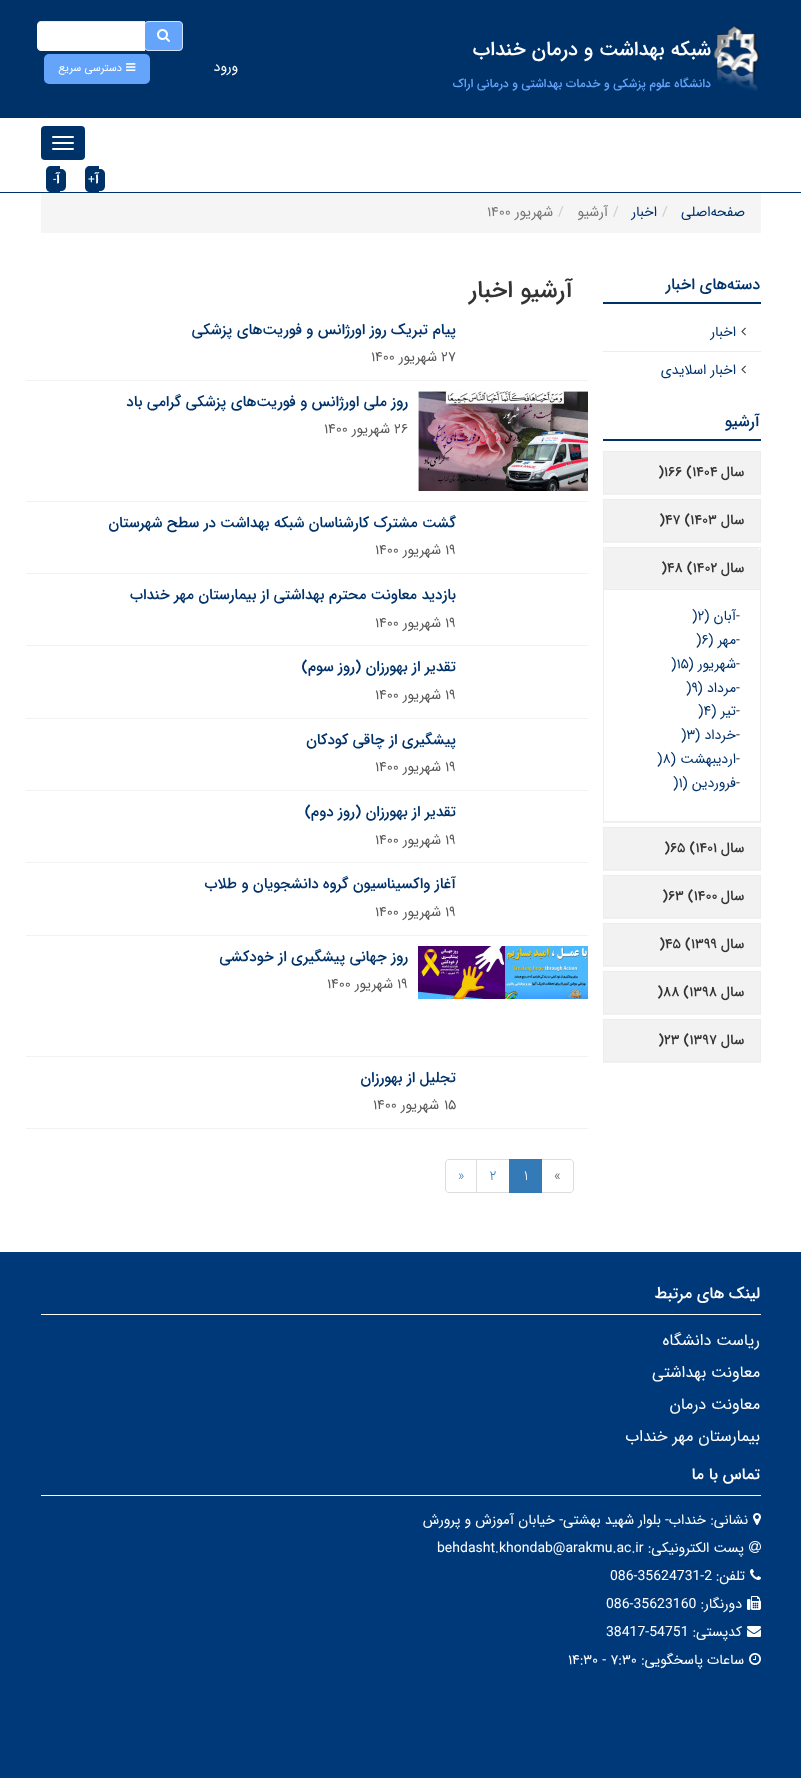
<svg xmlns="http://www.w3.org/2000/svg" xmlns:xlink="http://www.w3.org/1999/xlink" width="801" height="1778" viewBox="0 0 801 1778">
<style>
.cls-1{font:500 20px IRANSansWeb;direction:rtl;fill:#ffffff}
.cls-2{font:500 12px IRANSansWeb;direction:rtl;fill:#64a4fa}
.cls-3{font:14px IRANSansWeb;direction:rtl;fill:#ffffff}
.cls-4{font:11px IRANSansWeb;direction:rtl;fill:#ffffff}
.cls-5{font:bold 14px IRANSansWeb;direction:rtl;fill:#ffffff}
.cls-6{font:12px IRANSansWeb;fill:#ffffff}
.cls-7{font:14px IRANSansWeb;direction:rtl;fill:#00326a}
.cls-8{font:14px IRANSansWeb;fill:#cccccc}
.cls-9{font:14px IRANSansWeb;direction:rtl;fill:#777777}
.cls-10{font:14px IRANSansWeb;fill:#777777}
.cls-11{font:500 16px IRANSansWeb;direction:rtl;fill:#00326a}
.cls-12{font:500 14px IRANSansWeb;direction:rtl;fill:#333333}
.cls-13{font:500 14px IRANSansWeb;fill:#333333}
.cls-14{font:14px IRANSansWeb;fill:#333333}
.cls-15{font:14px IRANSansWeb;fill:#00326a}
.cls-16{font:500 24px IRANSansWeb;direction:rtl;fill:#333333}
.cls-17{font:500 15px IRANSansWeb;direction:rtl;fill:#00326a}
.cls-18{font:14px IRANSansWeb;fill:#595959}
.cls-19{font:14px IRANSansWeb;direction:rtl;fill:#595959}
.cls-20{font:300 14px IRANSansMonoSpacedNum;fill:#ffffff}
.cls-21{font:300 14px IRANSansMonoSpacedNum;fill:#337ab7}
.cls-22{font:500 16px IRANSansWeb;direction:rtl;fill:#ffffff}
.cls-23{font:16px IRANSansWeb;direction:rtl;fill:#ffffff}
.cls-24{font:14px IRANSansWeb;fill:#ffffff}
</style>
<defs>
<clipPath id="clip1"><rect x="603" y="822" width="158" height="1"/></clipPath>
</defs>
<rect width="100%" height="100%" fill="#ffffff"/>
<rect fill="#00326a" x="0" y="0" width="801" height="118"/>
<rect fill="#64a4fa" stroke="#d0e3fd" x="144.5" y="21.5" width="38" height="29" rx="3.5"/>
<image xlink:href="image0.png" x="157" y="29" width="13" height="13"/>
<path fill="#ffffff" d="M41 21H145V51H41C39 51 37 49 37 47V25C37 23 39 21 41 21Z"/>
<path fill="#000000" fill-opacity="0.07" d="M41 22H145V21H41C39 21 37 23 37 25V26C37 24 39 22 41 22Z"/>
<image xlink:href="image1.png" x="713" y="25" width="47" height="67"/>
<rect fill="#64a4fa" x="44" y="54" width="106" height="30" rx="5"/>
<image xlink:href="image2.png" x="126" y="63" width="10" height="8"/>
<rect fill="#00326a" x="0" y="192" width="801" height="1"/>
<rect fill="#00326a" x="41" y="126" width="44" height="34" rx="4"/>
<rect fill="#ffffff" x="52" y="136" width="22" height="2" rx="1"/>
<rect fill="#ffffff" x="52" y="142" width="22" height="2" rx="1"/>
<rect fill="#ffffff" x="52" y="148" width="22" height="2" rx="1"/>
<path fill="#00326a" d="M90 166H99V192H90C87 192 85 190 85 187V171C85 168 87 166 90 166Z"/>
<path fill="#00326a" d="M88 169H100C103 169 105 171 105 174V186C105 189 103 191 100 191H88Z"/>
<path fill="#00326a" d="M51 166H60V192H51C48 192 46 190 46 187V171C46 168 48 166 51 166Z"/>
<path fill="#00326a" d="M53 169H61C64 169 66 171 66 174V186C66 189 64 191 61 191H53Z"/>
<rect fill="#f5f5f5" x="41" y="193" width="720" height="40"/>
<rect fill="#00326a" x="603" y="302" width="158" height="2"/>
<rect fill="#ededed" x="603" y="351" width="158" height="1"/>
<image xlink:href="image3.png" x="741" y="327" width="5" height="9"/>
<image xlink:href="image3.png" x="741" y="365" width="5" height="9"/>
<rect fill="#00326a" x="603" y="439" width="158" height="2"/>
<rect fill="#000000" fill-opacity="0.05" filter="blur(0.5px)" x="603" y="452" width="158" height="43"/>
<rect fill="none" stroke="#ededed" x="603.5" y="451.5" width="157" height="42"/>
<rect fill="#000000" fill-opacity="0.05" filter="blur(0.5px)" x="603" y="500" width="158" height="43"/>
<rect fill="none" stroke="#ededed" x="603.5" y="499.5" width="157" height="42"/>
<g clip-path="url(#clip1)">
<rect fill="#000000" fill-opacity="0.05" filter="blur(0.5px)" x="603" y="548" width="158" height="275"/>
</g>
<rect fill="none" stroke="#ededed" x="603.5" y="547.5" width="157" height="274"/>
<path fill="#f2f2f2" d="M607 548H757C758.5 548 760 549.5 760 551V589H604V551C604 549.5 605.5 548 607 548Z"/>
<rect fill="#ededed" x="604" y="589" width="156" height="1"/>
<rect fill="#000000" fill-opacity="0.05" filter="blur(0.5px)" x="603" y="828" width="158" height="43"/>
<rect fill="none" stroke="#ededed" x="603.5" y="827.5" width="157" height="42"/>
<rect fill="#000000" fill-opacity="0.05" filter="blur(0.5px)" x="603" y="876" width="158" height="43"/>
<rect fill="none" stroke="#ededed" x="603.5" y="875.5" width="157" height="42"/>
<rect fill="#000000" fill-opacity="0.05" filter="blur(0.5px)" x="603" y="924" width="158" height="43"/>
<rect fill="none" stroke="#ededed" x="603.5" y="923.5" width="157" height="42"/>
<rect fill="#000000" fill-opacity="0.05" filter="blur(0.5px)" x="603" y="972" width="158" height="43"/>
<rect fill="none" stroke="#ededed" x="603.5" y="971.5" width="157" height="42"/>
<rect fill="#000000" fill-opacity="0.05" filter="blur(0.5px)" x="603" y="1020" width="158" height="43"/>
<rect fill="none" stroke="#ededed" x="603.5" y="1019.5" width="157" height="42"/>
<rect fill="#f2f2f2" x="26" y="380" width="562" height="1"/>
<rect fill="#f2f2f2" x="26" y="501" width="562" height="1"/>
<image xlink:href="image4.png" x="418" y="391" width="170" height="100"/>
<rect fill="#f2f2f2" x="26" y="573" width="562" height="1"/>
<rect fill="#f2f2f2" x="26" y="645" width="562" height="1"/>
<rect fill="#f2f2f2" x="26" y="718" width="562" height="1"/>
<rect fill="#f2f2f2" x="26" y="790" width="562" height="1"/>
<rect fill="#f2f2f2" x="26" y="862" width="562" height="1"/>
<rect fill="#f2f2f2" x="26" y="935" width="562" height="1"/>
<rect fill="#f2f2f2" x="26" y="1056" width="562" height="1"/>
<image xlink:href="image5.png" x="418" y="946" width="170" height="53"/>
<rect fill="#f2f2f2" x="26" y="1128" width="562" height="1"/>
<path fill="none" stroke="#dddddd" d="M541.5 1159.5H570C572 1159.5 573.5 1161 573.5 1163V1189C573.5 1191 572 1192.5 570 1192.5H541.5Z"/>
<rect fill="none" stroke="#dddddd" x="476.5" y="1159.5" width="33" height="33"/>
<rect fill="#337ab7" x="509" y="1159" width="33" height="34"/>
<path fill="#ffffff" stroke="#dddddd" d="M449 1159.5H476.5V1192.5H449C447 1192.5 445.5 1191 445.5 1189V1163C445.5 1161 447 1159.5 449 1159.5Z"/>
<rect fill="#003979" x="0" y="1252" width="801" height="526"/>
<rect fill="#ffffff" x="41" y="1314" width="720" height="1"/>
<rect fill="#ffffff" x="41" y="1495" width="720" height="1"/>
<image xlink:href="image6.png" x="753" y="1513" width="8" height="12"/>
<image xlink:href="image7.png" x="749" y="1541" width="12" height="12"/>
<image xlink:href="image8.png" x="750" y="1569" width="11" height="11"/>
<image xlink:href="image9.png" x="747" y="1596" width="14" height="14"/>
<image xlink:href="image10.png" x="747" y="1626" width="14" height="11"/>
<image xlink:href="image11.png" x="749" y="1653" width="12" height="12"/>
<text class="cls-1" x="711" y="55">شبکه بهداشت و درمان خنداب</text>
<text class="cls-2" x="711" y="87">دانشگاه علوم پزشکی و خدمات بهداشتی و درمانی اراک</text>
<text class="cls-3" x="238" y="71">ورود</text>
<text class="cls-4" x="122" y="71">دسترسی سریع</text>
<text class="cls-5" x="99" y="183">آ</text>
<text class="cls-6" x="88" y="183">+</text>
<text class="cls-5" x="60" y="183">آ</text>
<text class="cls-6" x="53" y="183">-</text>
<text class="cls-7" x="745" y="216">صفحه‌اصلی</text>
<text class="cls-8" x="662" y="216">/</text>
<text class="cls-7" x="657" y="216">اخبار</text>
<text class="cls-8" x="613" y="216">/</text>
<text class="cls-9" x="608" y="216">آرشیو</text>
<text class="cls-8" x="558" y="216">/</text>
<text class="cls-9" x="553" y="216">شهریور</text>
<text class="cls-10" x="487" y="216">۱۴۰۰</text>
<text class="cls-11" x="760" y="289">دسته‌های اخبار</text>
<text class="cls-7" x="736" y="336">اخبار</text>
<text class="cls-7" x="736" y="374">اخبار اسلایدی</text>
<text class="cls-11" x="760" y="426">آرشیو</text>
<text class="cls-12" x="744" y="476">سال</text>
<text class="cls-13" x="658" y="476">)۱۶۶ (۱۴۰۴</text>
<text class="cls-12" x="744" y="524">سال</text>
<text class="cls-13" x="659" y="524">)۴۷ (۱۴۰۳</text>
<text class="cls-12" x="744" y="572">سال</text>
<text class="cls-13" x="661" y="572">)۴۸ (۱۴۰۲</text>
<text class="cls-14" x="736" y="620">-</text>
<text class="cls-7" x="736" y="620">آبان (</text>
<text class="cls-15" x="692" y="620">)۲</text>
<text class="cls-14" x="736" y="644">-</text>
<text class="cls-7" x="736" y="644">مهر (</text>
<text class="cls-15" x="696" y="644">)۶</text>
<text class="cls-14" x="736" y="668">-</text>
<text class="cls-7" x="736" y="668">شهریور (</text>
<text class="cls-15" x="671" y="668">)۱۵</text>
<text class="cls-14" x="736" y="692">-</text>
<text class="cls-7" x="736" y="692">مرداد (</text>
<text class="cls-15" x="686" y="692">)۹</text>
<text class="cls-14" x="736" y="715">-</text>
<text class="cls-7" x="736" y="715">تیر (</text>
<text class="cls-15" x="698" y="715">)۴</text>
<text class="cls-14" x="736" y="739">-</text>
<text class="cls-7" x="736" y="739">خرداد (</text>
<text class="cls-15" x="681" y="739">)۳</text>
<text class="cls-14" x="736" y="763">-</text>
<text class="cls-7" x="736" y="763">اردیبهشت (</text>
<text class="cls-15" x="657" y="763">)۸</text>
<text class="cls-14" x="736" y="787">-</text>
<text class="cls-7" x="736" y="787">فروردین (</text>
<text class="cls-15" x="673" y="787">)۱</text>
<text class="cls-12" x="744" y="852">سال</text>
<text class="cls-13" x="664" y="852">)۶۵ (۱۴۰۱</text>
<text class="cls-12" x="744" y="900">سال</text>
<text class="cls-13" x="662" y="900">)۶۳ (۱۴۰۰</text>
<text class="cls-12" x="744" y="948">سال</text>
<text class="cls-13" x="659" y="948">)۴۵ (۱۳۹۹</text>
<text class="cls-12" x="744" y="996">سال</text>
<text class="cls-13" x="657" y="996">)۸۸ (۱۳۹۸</text>
<text class="cls-12" x="744" y="1044">سال</text>
<text class="cls-13" x="658" y="1044">)۲۳ (۱۳۹۷</text>
<text class="cls-16" x="573" y="297">آرشیو اخبار</text>
<text class="cls-17" x="456" y="334">پیام</text>
<text class="cls-17" x="428" y="334">تبریک روز اورژانس و فوریت‌های پزشکی</text>
<text class="cls-18" x="441" y="361">۲۷</text>
<text class="cls-19" x="437" y="361">شهریور</text>
<text class="cls-18" x="371" y="361">۱۴۰۰</text>
<text class="cls-17" x="408" y="406">روز ملی اورژانس و فوریت‌های پزشکی گرامی باد</text>
<text class="cls-18" x="394" y="433">۲۶</text>
<text class="cls-19" x="390" y="433">شهریور</text>
<text class="cls-18" x="324" y="433">۱۴۰۰</text>
<text class="cls-17" x="456" y="527">گشت مشترک کارشناسان شبکه بهداشت در سطح شهرستان</text>
<text class="cls-18" x="445" y="554">۱۹</text>
<text class="cls-19" x="441" y="554">شهریور</text>
<text class="cls-18" x="375" y="554">۱۴۰۰</text>
<text class="cls-17" x="456" y="599">بازدید معاونت محترم بهداشتی از بیمارستان مهر خنداب</text>
<text class="cls-18" x="445" y="627">۱۹</text>
<text class="cls-19" x="441" y="627">شهریور</text>
<text class="cls-18" x="375" y="627">۱۴۰۰</text>
<text class="cls-17" x="456" y="671">تقدیر از بهورزان (روز سوم)</text>
<text class="cls-18" x="445" y="699">۱۹</text>
<text class="cls-19" x="441" y="699">شهریور</text>
<text class="cls-18" x="375" y="699">۱۴۰۰</text>
<text class="cls-17" x="456" y="744">پیشگیری از چاقی کودکان</text>
<text class="cls-18" x="445" y="771">۱۹</text>
<text class="cls-19" x="441" y="771">شهریور</text>
<text class="cls-18" x="375" y="771">۱۴۰۰</text>
<text class="cls-17" x="456" y="816">تقدیر از بهورزان (روز دوم)</text>
<text class="cls-18" x="445" y="844">۱۹</text>
<text class="cls-19" x="441" y="844">شهریور</text>
<text class="cls-18" x="375" y="844">۱۴۰۰</text>
<text class="cls-17" x="456" y="888">آغاز واکسیناسیون گروه دانشجویان و طلاب</text>
<text class="cls-18" x="445" y="916">۱۹</text>
<text class="cls-19" x="441" y="916">شهریور</text>
<text class="cls-18" x="375" y="916">۱۴۰۰</text>
<text class="cls-17" x="408" y="961">روز جهانی پیشگیری از خودکشی</text>
<text class="cls-18" x="397" y="988">۱۹</text>
<text class="cls-19" x="393" y="988">شهریور</text>
<text class="cls-18" x="327" y="988">۱۴۰۰</text>
<text class="cls-17" x="456" y="1082">تجلیل از بهورزان</text>
<text class="cls-18" x="444" y="1109">۱۵</text>
<text class="cls-19" x="439" y="1109">شهریور</text>
<text class="cls-18" x="373" y="1109">۱۴۰۰</text>
<text class="cls-10" x="554" y="1180">«</text>
<text class="cls-20" x="522" y="1180">1</text>
<text class="cls-21" x="489" y="1180">2</text>
<text class="cls-21" x="458" y="1180">»</text>
<text class="cls-22" x="760" y="1298">لینک های مرتبط</text>
<text class="cls-23" x="760" y="1345">ریاست دانشگاه</text>
<text class="cls-23" x="760" y="1377">معاونت بهداشتی</text>
<text class="cls-23" x="760" y="1409">معاونت درمان</text>
<text class="cls-23" x="760" y="1441">بیمارستان مهر خنداب</text>
<text class="cls-22" x="760" y="1479">تماس با ما</text>
<text class="cls-3" x="748" y="1524">نشانی:</text>
<text class="cls-3" x="706" y="1524">خنداب- بلوار شهید بهشتی- خیابان آموزش و پرورش</text>
<text class="cls-3" x="744" y="1552">پست الکترونیکی:</text>
<text class="cls-24" x="437" y="1552">behdasht.khondab@arakmu.ac.ir</text>
<text class="cls-3" x="745" y="1580">تلفن:</text>
<text class="cls-24" x="610" y="1580">086-35624731-2</text>
<text class="cls-3" x="742" y="1608">دورنگار:</text>
<text class="cls-24" x="606" y="1608">086-35623160</text>
<text class="cls-3" x="742" y="1636">کدپستی:</text>
<text class="cls-24" x="606" y="1636">38417-54751</text>
<text class="cls-3" x="744" y="1664">ساعات پاسخگویی:</text>
<text class="cls-24" x="568" y="1664">۱۴:۳۰ - ۷:۳۰</text>
</svg>
